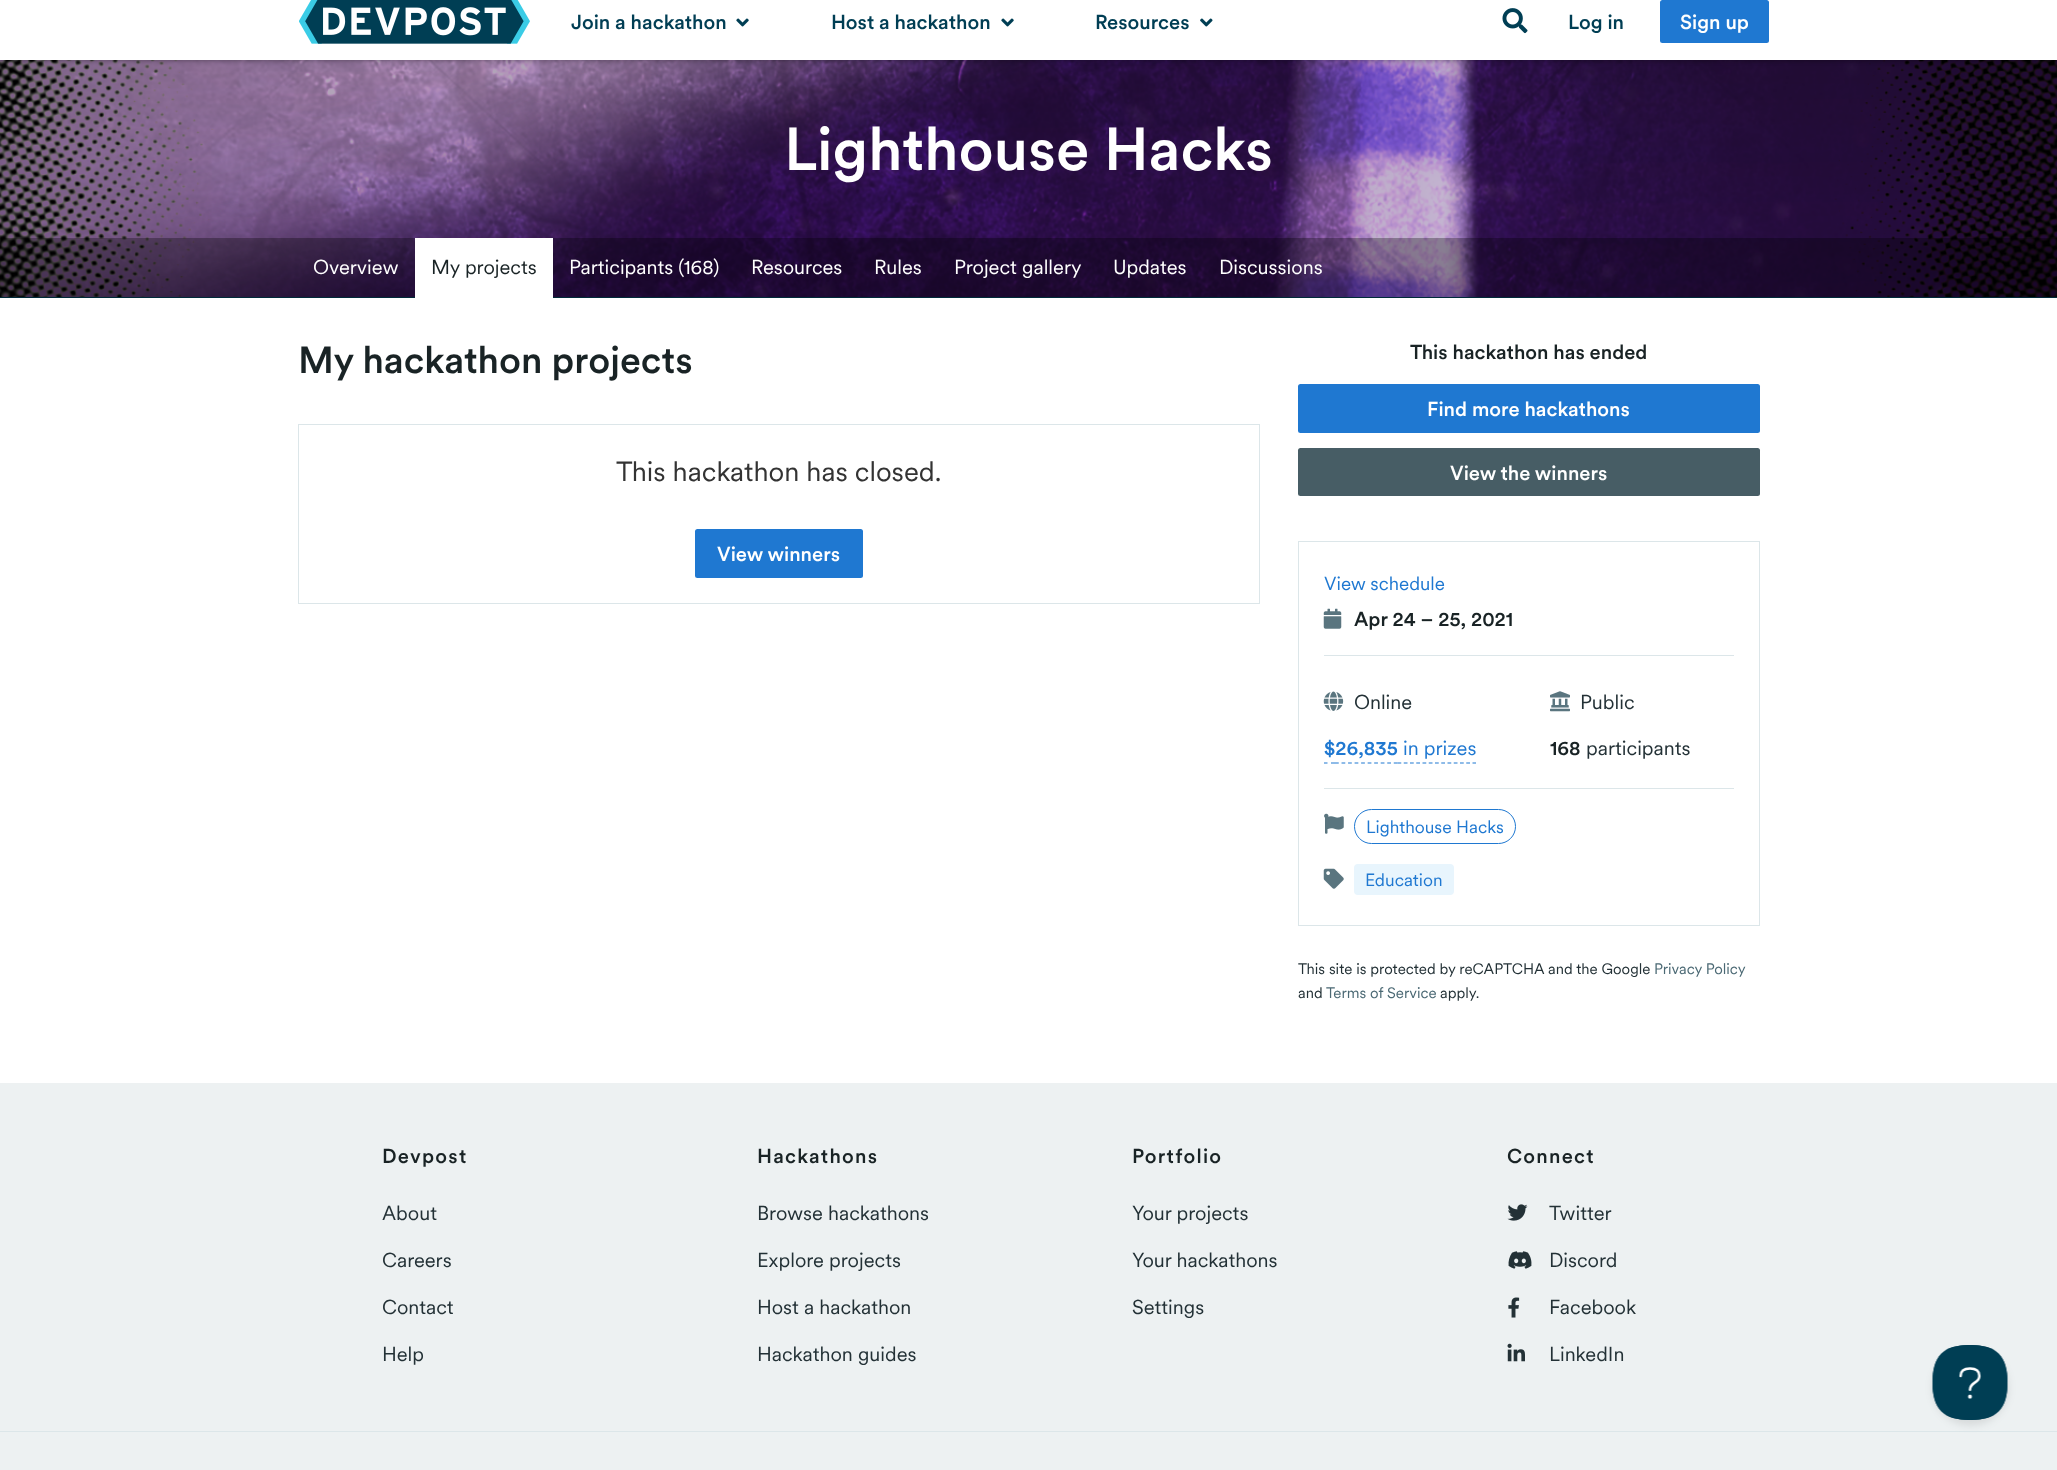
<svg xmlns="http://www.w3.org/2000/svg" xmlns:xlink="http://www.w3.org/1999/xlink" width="2057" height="1470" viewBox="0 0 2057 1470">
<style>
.cls-1{font:500 20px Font;fill:#003e54}
.cls-2{font:500 20px Font;fill:#ffffff}
.cls-3{font:500 60px Font;fill:#ffffff}
.cls-4{font:20px Font;fill:#ffffff}
.cls-5{font:20px Font;fill:#192325}
.cls-6{font:500 37.5px Font;fill:#192325}
.cls-7{font:27.5px Font;fill:#333333}
.cls-8{font:500 20px Font;fill:#192325}
.cls-9{font:18.75px Font;fill:#1f78d1}
.cls-10{font:20px Font;fill:#233136}
.cls-11{font:500 20px Font;fill:#1f78d1}
.cls-12{font:20px Font;fill:#1f78d1}
.cls-13{font:17.5px Font;fill:#1f78d1}
.cls-14{font:15px Font;fill:#233136}
.cls-15{font:15px Font;fill:#4b6974}
.cls-16{font:500 20px Font;letter-spacing:1.25px;fill:#192325}
</style>
<rect width="100%" height="100%" fill="#ffffff"/>
<image xlink:href="image4.png" x="0" y="60" width="2057" height="237"/>
<rect fill="#000000" fill-opacity="0.3" filter="blur(2px)" x="0" y="-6" width="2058" height="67"/>
<rect fill="#ffffff" x="0" y="0" width="2057" height="60"/>
<image xlink:href="image0.png" x="299" y="0" width="231" height="44"/>
<image xlink:href="image1.png" x="736" y="18" width="13" height="9"/>
<image xlink:href="image1.png" x="1001" y="18" width="13" height="9"/>
<image xlink:href="image2.png" x="1200" y="18" width="13" height="9"/>
<image xlink:href="image3.png" x="1502" y="8" width="26" height="26"/>
<rect fill="#1f78d1" x="1660" y="0" width="109" height="43" rx="2.5"/>
<rect fill="#003e54" x="0" y="297" width="2057" height="1"/>
<rect fill="#000000" fill-opacity="0.3" x="0" y="238" width="2057" height="60"/>
<rect fill="#ffffff" x="415" y="238" width="138" height="60"/>
<rect fill="none" stroke="#dce6e9" x="298.5" y="424.5" width="961" height="179"/>
<rect fill="#1f78d1" x="695" y="529" width="168" height="49" rx="2.5"/>
<rect fill="#1f78d1" x="1298" y="384" width="462" height="49" rx="2.5"/>
<rect fill="#475d65" x="1298" y="448" width="462" height="48" rx="2.5"/>
<rect fill="none" stroke="#dce6e9" x="1298.5" y="541.5" width="461" height="384"/>
<rect fill="#dce6e9" x="1324" y="655" width="410" height="1"/>
<image xlink:href="image5.png" x="1323" y="608" width="19" height="21"/>
<rect fill="#dce6e9" x="1324" y="788" width="410" height="1"/>
<image xlink:href="image6.png" x="1323" y="691" width="21" height="20"/>
<image xlink:href="image7.png" x="1550" y="691" width="20" height="21"/>
<path fill="none" stroke="#1f78d1" stroke-width="1.2" d="M1324 763H1327.5M1331 763H1335"/>
<path fill="none" stroke="#1f78d1" stroke-width="1.2" stroke-dasharray="3.75 2.78" d="M1335 763H1397.5"/>
<path fill="none" stroke="#1f78d1" stroke-width="1.2" stroke-dasharray="3.75 2.5" d="M1397.5 763H1476"/>
<image xlink:href="image8.png" x="1324" y="813" width="20" height="21"/>
<rect fill="none" stroke="#1f78d1" x="1354.5" y="809.5" width="161" height="34" rx="17"/>
<image xlink:href="image9.png" x="1323" y="868" width="21" height="21"/>
<rect fill="#e8f5fd" x="1354" y="864" width="100" height="31" rx="4"/>
<rect fill="#edf1f2" x="0" y="1083" width="2057" height="387"/>
<image xlink:href="image10.png" x="1507" y="1204" width="21" height="17"/>
<image xlink:href="image11.png" x="1508" y="1251" width="24" height="18"/>
<image xlink:href="image12.png" x="1508" y="1297" width="12" height="21"/>
<image xlink:href="image13.png" x="1507" y="1343" width="18" height="19"/>
<rect fill="#dce6e9" x="0" y="1431" width="2057" height="1"/>
<rect fill="#000000" fill-opacity="0.1" filter="blur(4.5px)" x="1933" y="1350" width="75" height="75" rx="37.5"/>
<image xlink:href="image14.png" x="1932" y="1345" width="76" height="75"/>
<text class="cls-1" x="571" y="29">Join a hackathon</text>
<text class="cls-1" x="831" y="29">Host a hackathon</text>
<text class="cls-1" x="1095" y="29">Resources</text>
<text class="cls-1" x="1568" y="29">Log in</text>
<text class="cls-2" x="1680" y="29">Sign up</text>
<text class="cls-3" x="784" y="170">Lighthouse Hacks</text>
<text class="cls-4" x="313" y="274">Overview</text>
<text class="cls-5" x="431" y="274">My projects</text>
<text class="cls-4" x="569" y="274">Participants (168)</text>
<text class="cls-4" x="751" y="274">Resources</text>
<text class="cls-4" x="874" y="274">Rules</text>
<text class="cls-4" x="954" y="274">Project gallery</text>
<text class="cls-4" x="1113" y="274">Updates</text>
<text class="cls-4" x="1219" y="274">Discussions</text>
<text class="cls-6" x="298" y="373">My hackathon projects</text>
<text class="cls-7" x="616" y="481">This hackathon has closed.</text>
<text class="cls-2" x="717" y="561">View winners</text>
<text class="cls-8" x="1410" y="359">This hackathon has ended</text>
<text class="cls-2" x="1427" y="416">Find more hackathons</text>
<text class="cls-2" x="1450" y="480">View the winners</text>
<text class="cls-9" x="1324" y="590">View schedule</text>
<text class="cls-8" x="1354" y="626">Apr 24 – 25, 2021</text>
<text class="cls-10" x="1354" y="709">Online</text>
<text class="cls-10" x="1580" y="709">Public</text>
<text class="cls-11" x="1324" y="755">$26,835</text>
<text class="cls-12" x="1403" y="755">in prizes</text>
<text class="cls-8" x="1550" y="755">168</text>
<text class="cls-10" x="1586" y="755">participants</text>
<text class="cls-13" x="1366" y="833">Lighthouse Hacks</text>
<text class="cls-13" x="1365" y="886">Education</text>
<text class="cls-14" x="1298" y="974">This site is protected by reCAPTCHA and the Google</text>
<text class="cls-15" x="1654" y="974">Privacy Policy</text>
<text class="cls-14" x="1298" y="998">and</text>
<text class="cls-15" x="1326" y="998">Terms of Service</text>
<text class="cls-14" x="1440" y="998">apply.</text>
<text class="cls-16" x="382" y="1163">Devpost</text>
<text class="cls-10" x="382" y="1220">About</text>
<text class="cls-10" x="382" y="1267">Careers</text>
<text class="cls-10" x="382" y="1314">Contact</text>
<text class="cls-10" x="382" y="1361">Help</text>
<text class="cls-16" x="757" y="1163">Hackathons</text>
<text class="cls-10" x="757" y="1220">Browse hackathons</text>
<text class="cls-10" x="757" y="1267">Explore projects</text>
<text class="cls-10" x="757" y="1314">Host a hackathon</text>
<text class="cls-10" x="757" y="1361">Hackathon guides</text>
<text class="cls-16" x="1132" y="1163">Portfolio</text>
<text class="cls-10" x="1132" y="1220">Your projects</text>
<text class="cls-10" x="1132" y="1267">Your hackathons</text>
<text class="cls-10" x="1132" y="1314">Settings</text>
<text class="cls-16" x="1507" y="1163">Connect</text>
<text class="cls-10" x="1549" y="1220">Twitter</text>
<text class="cls-10" x="1549" y="1267">Discord</text>
<text class="cls-10" x="1549" y="1314">Facebook</text>
<text class="cls-10" x="1549" y="1361">LinkedIn</text>
</svg>
